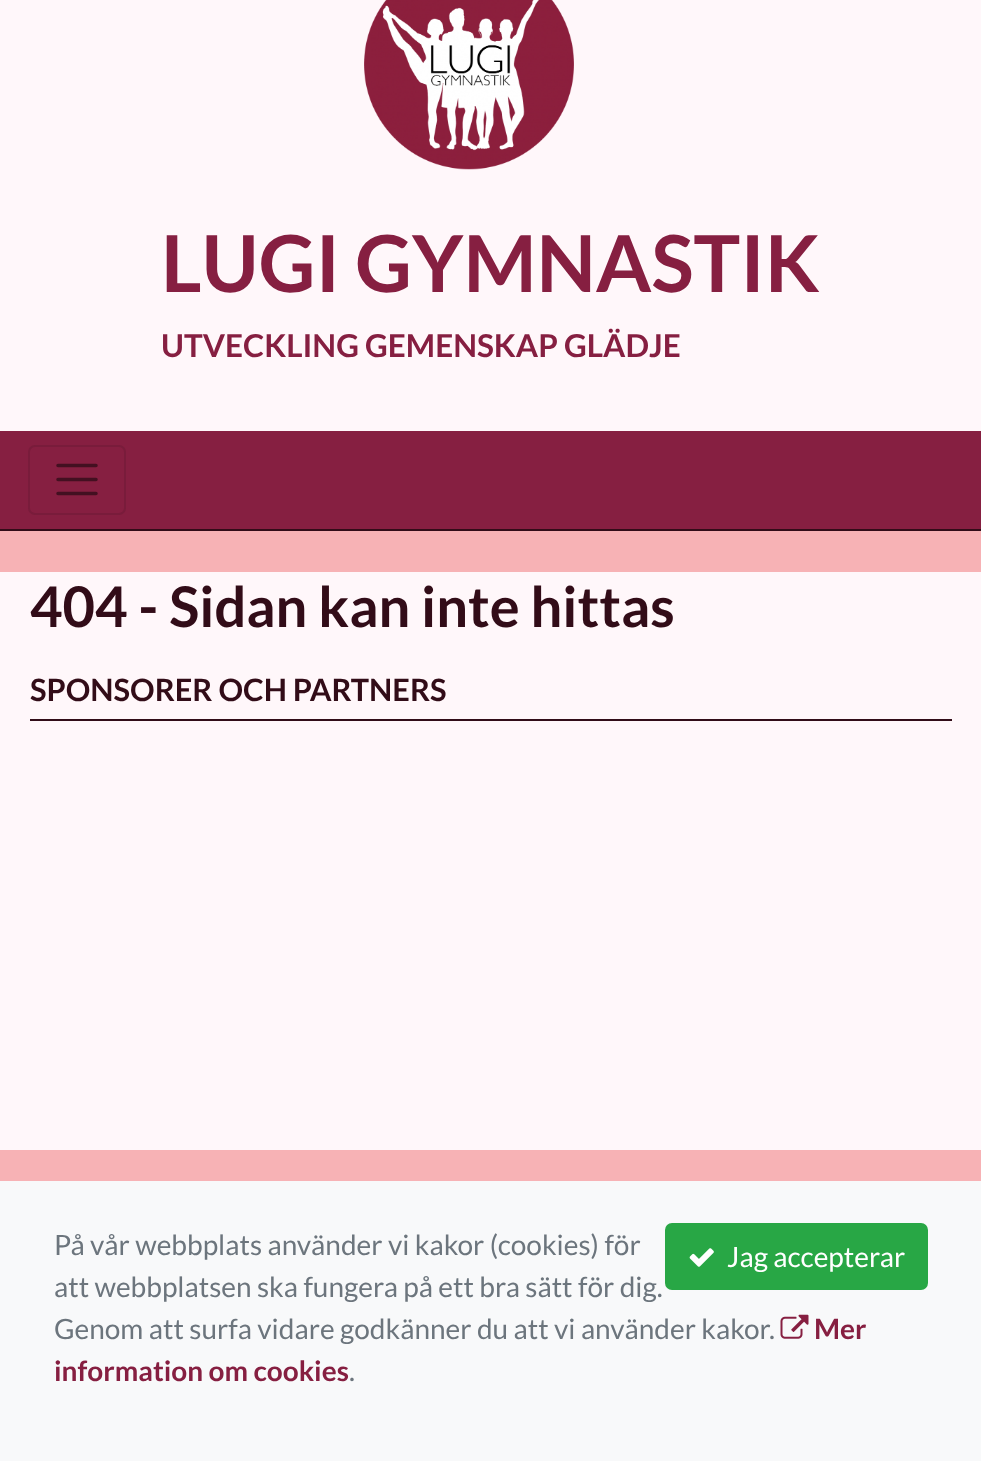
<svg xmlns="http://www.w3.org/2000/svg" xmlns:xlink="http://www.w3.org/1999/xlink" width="981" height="1461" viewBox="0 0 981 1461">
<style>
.cls-1{font:bold 78.5px Lato;fill:#861f41}
.cls-2{font:bold 31.5px Lato;fill:#861f41}
.cls-3{font:bold 56px Lato;fill:#320c18}
.cls-4{font:bold 30.75px Lato;fill:#320c18}
.cls-5{font:28px Lato;fill:#6c757d}
.cls-6{font:bold 28px Lato;fill:#861f41}
.cls-7{font:28px Lato;fill:#ffffff}
</style>
<rect width="100%" height="100%" fill="#f7b2b5"/>
<rect fill="#fff7fa" x="0" y="0" width="981" height="431"/>
<image xlink:href="image0.png" x="364" y="0" width="210" height="170"/>
<rect fill="#861f41" x="0" y="431" width="981" height="98"/>
<rect fill="none" stroke="#791c3b" stroke-width="2" x="29" y="446" width="96" height="68" rx="6"/>
<path fill="none" stroke="#431021" stroke-width="3.5" stroke-linecap="round" d="M58 465.5H96M58 479.5H96M58 493.5H96"/>
<rect fill="#320c18" x="0" y="529" width="981" height="2"/>
<rect fill="#fff7fa" x="0" y="572" width="981" height="578"/>
<rect fill="#320c18" x="30" y="719" width="922" height="2"/>
<rect fill="#f8f9fa" x="0" y="1181" width="981" height="280"/>
<image xlink:href="image1.png" x="780" y="1314" width="29" height="25"/>
<rect fill="#28a745" stroke="#28a745" stroke-width="2" x="666" y="1224" width="261" height="65" rx="6"/>
<image xlink:href="image2.png" x="689" y="1248" width="25" height="19"/>
<text class="cls-1" x="161" y="292">LUGI GYMNASTIK</text>
<text class="cls-2" x="161" y="357">UTVECKLING GEMENSKAP GLÄDJE</text>
<text class="cls-3" x="30" y="627">404 - Sidan kan inte hittas</text>
<text class="cls-4" x="30" y="701">SPONSORER OCH PARTNERS</text>
<text class="cls-5"><tspan x="54" y="1255">På vår webbplats använder vi kakor (cookies) för</tspan><tspan x="54" y="1297">att webbplatsen ska fungera på ett bra sätt för dig.</tspan><tspan x="54" y="1339">Genom att surfa vidare godkänner du att vi använder kakor.</tspan></text>
<text class="cls-6" x="814" y="1339">Mer</text>
<text class="cls-6" x="54" y="1381">information om cookies</text>
<text class="cls-5" x="349" y="1381">.</text>
<text class="cls-7" x="727" y="1267">Jag accepterar</text>
</svg>
